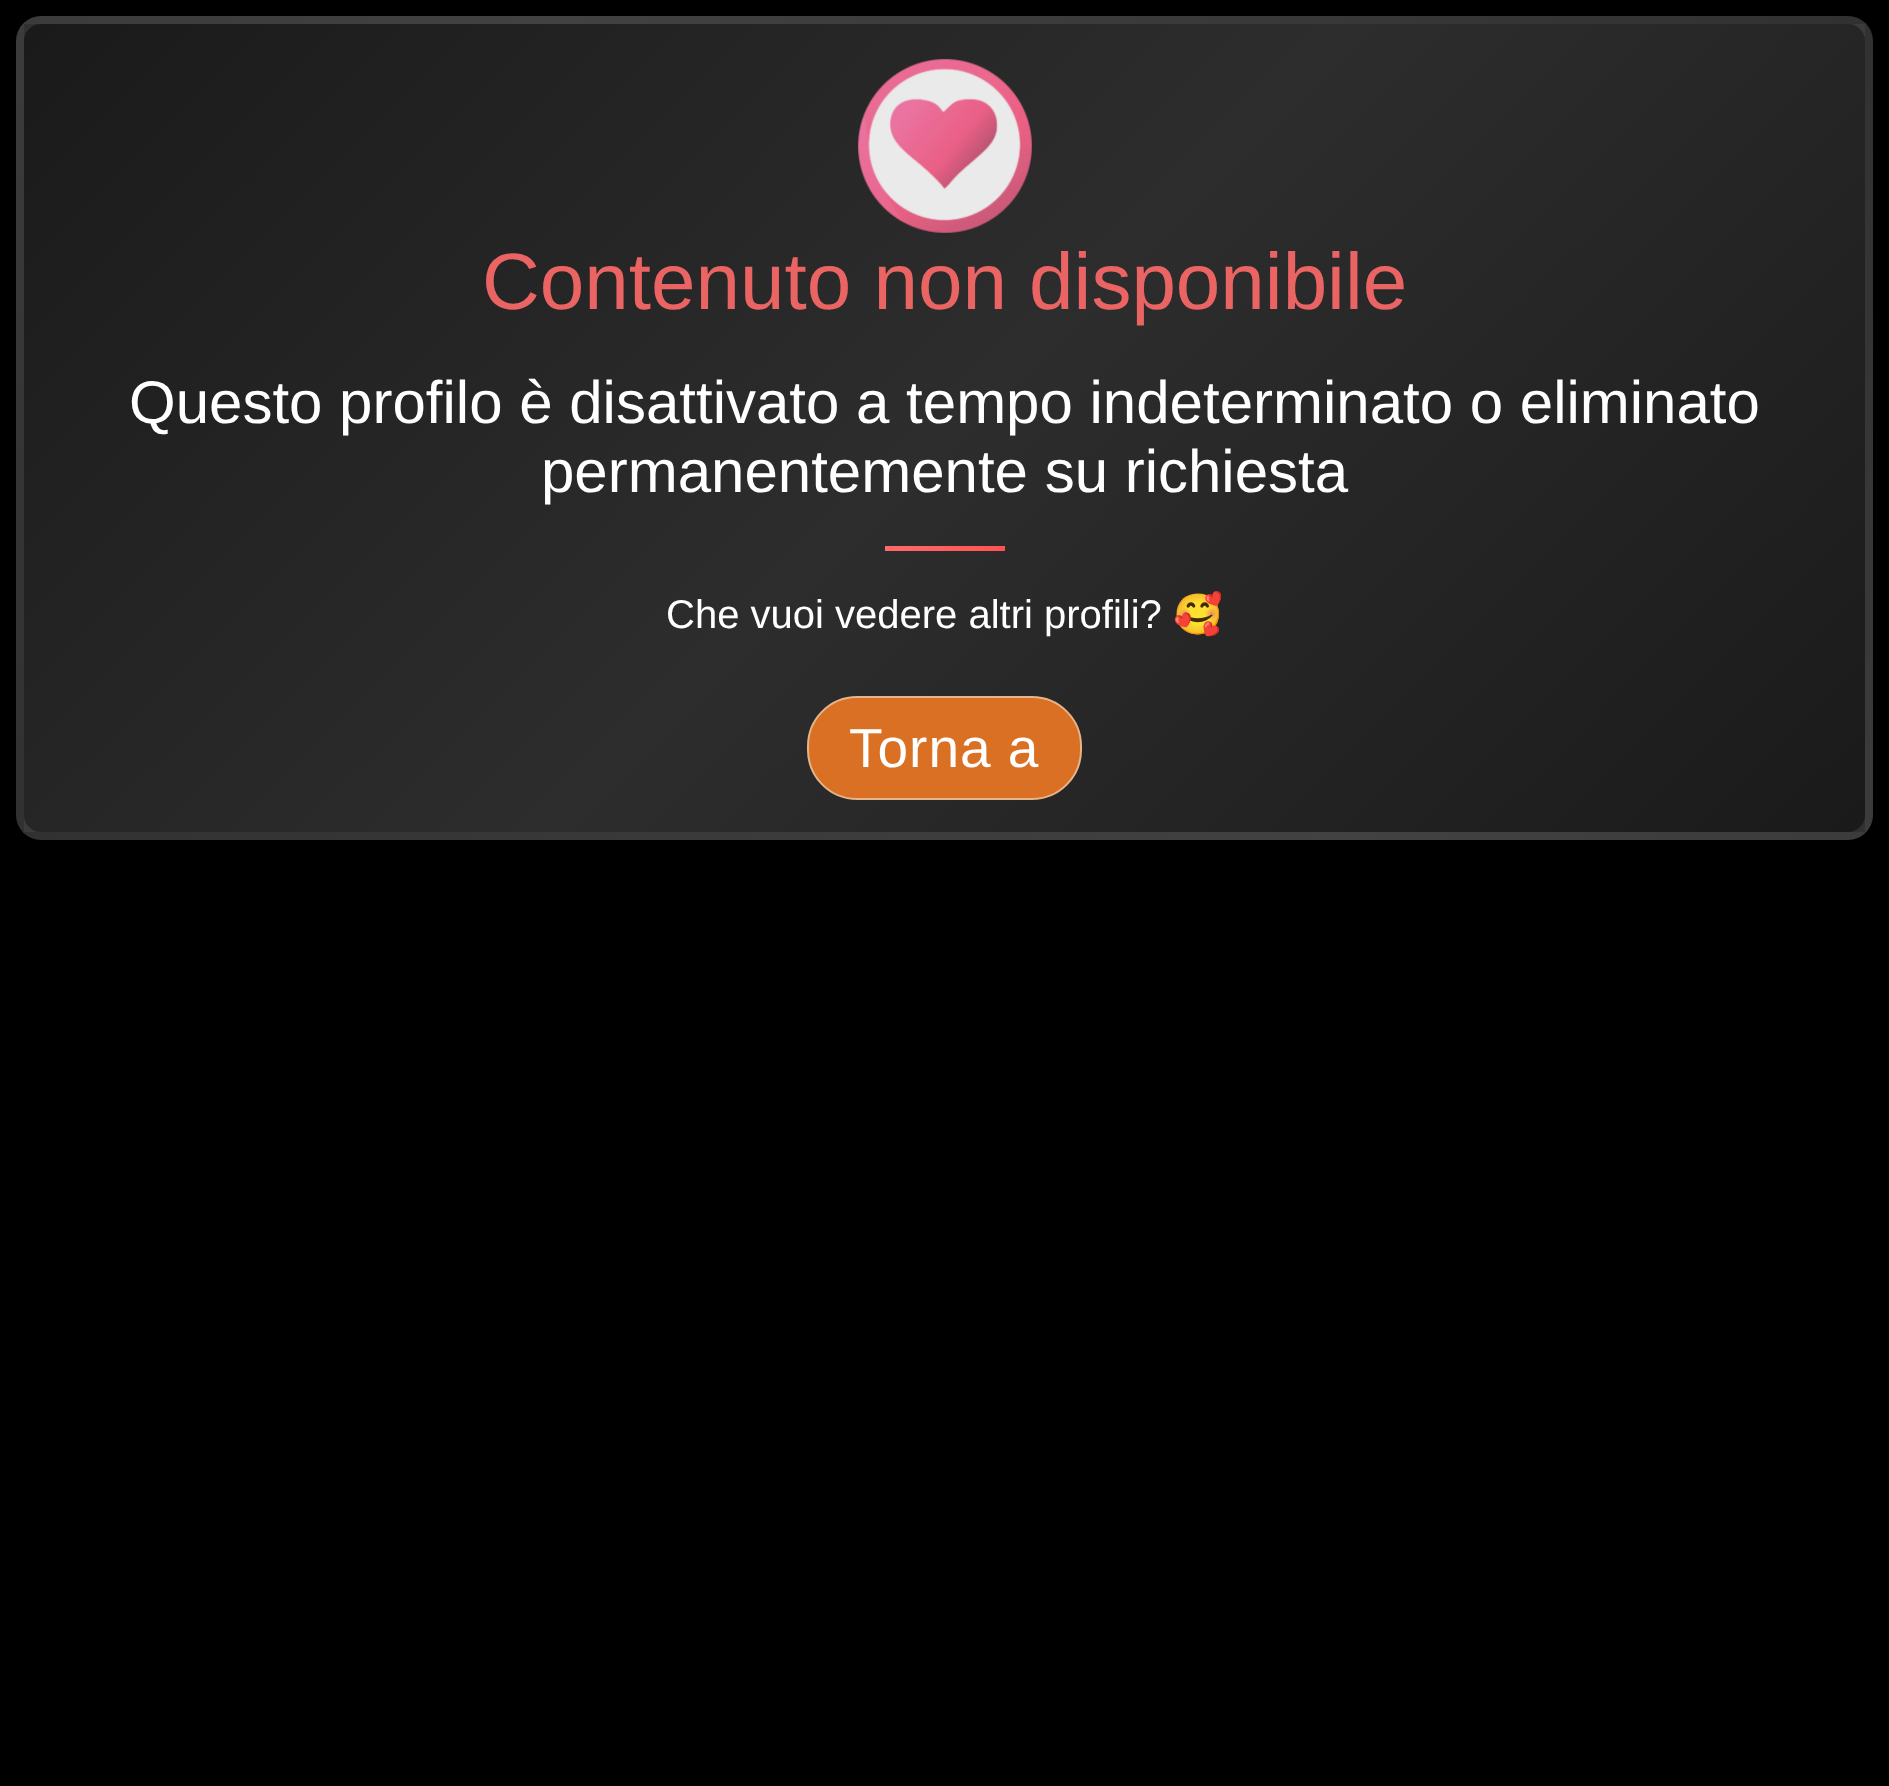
<svg xmlns="http://www.w3.org/2000/svg" xmlns:xlink="http://www.w3.org/1999/xlink" width="1889" height="1786" viewBox="0 0 1889 1786">
<style>
.cls-1{font:80px Liberation Sans;fill:#ea6464}
.cls-2{font:60px Liberation Sans;fill:#ffffff}
.cls-3{font:40px Liberation Sans;fill:#ffffff}
.cls-4{font:40px Noto Color Emoji;fill:#ffffff}
.cls-5{font:55px Liberation Sans;letter-spacing:1px;fill:#ffffff}
</style>
<defs>
<clipPath id="clip1"><rect x="16" y="16" width="1857" height="824" rx="25"/></clipPath>
<linearGradient id="g1" gradientUnits="userSpaceOnUse" x1="-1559" y1="-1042" x2="-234" y2="282"><stop offset="0" stop-color="#1a1a1a"/><stop offset="0.5" stop-color="#2d2d2d"/><stop offset="1" stop-color="#1a1a1a"/></linearGradient>
<linearGradient id="g2" gradientUnits="userSpaceOnUse" x1="282" y1="-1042" x2="1607" y2="282"><stop offset="0" stop-color="#1a1a1a"/><stop offset="0.5" stop-color="#2d2d2d"/><stop offset="1" stop-color="#1a1a1a"/></linearGradient>
<linearGradient id="g3" gradientUnits="userSpaceOnUse" x1="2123" y1="-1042" x2="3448" y2="282"><stop offset="0" stop-color="#1a1a1a"/><stop offset="0.5" stop-color="#2d2d2d"/><stop offset="1" stop-color="#1a1a1a"/></linearGradient>
<linearGradient id="g4" gradientUnits="userSpaceOnUse" x1="-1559" y1="-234" x2="-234" y2="1090"><stop offset="0" stop-color="#1a1a1a"/><stop offset="0.5" stop-color="#2d2d2d"/><stop offset="1" stop-color="#1a1a1a"/></linearGradient>
<linearGradient id="g5" gradientUnits="userSpaceOnUse" x1="282" y1="-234" x2="1607" y2="1090"><stop offset="0" stop-color="#1a1a1a"/><stop offset="0.5" stop-color="#2d2d2d"/><stop offset="1" stop-color="#1a1a1a"/></linearGradient>
<linearGradient id="g6" gradientUnits="userSpaceOnUse" x1="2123" y1="-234" x2="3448" y2="1090"><stop offset="0" stop-color="#1a1a1a"/><stop offset="0.5" stop-color="#2d2d2d"/><stop offset="1" stop-color="#1a1a1a"/></linearGradient>
<linearGradient id="g7" gradientUnits="userSpaceOnUse" x1="-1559" y1="574" x2="-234" y2="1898"><stop offset="0" stop-color="#1a1a1a"/><stop offset="0.5" stop-color="#2d2d2d"/><stop offset="1" stop-color="#1a1a1a"/></linearGradient>
<linearGradient id="g8" gradientUnits="userSpaceOnUse" x1="282" y1="574" x2="1607" y2="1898"><stop offset="0" stop-color="#1a1a1a"/><stop offset="0.5" stop-color="#2d2d2d"/><stop offset="1" stop-color="#1a1a1a"/></linearGradient>
<linearGradient id="g9" gradientUnits="userSpaceOnUse" x1="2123" y1="574" x2="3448" y2="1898"><stop offset="0" stop-color="#1a1a1a"/><stop offset="0.5" stop-color="#2d2d2d"/><stop offset="1" stop-color="#1a1a1a"/></linearGradient>
<linearGradient id="g10" gradientUnits="userSpaceOnUse" x1="914" y1="580" x2="976" y2="517"><stop offset="0" stop-color="#ff6b6b"/><stop offset="1" stop-color="#ff5252"/></linearGradient>
</defs>
<rect width="100%" height="100%" fill="#000000"/>
<g clip-path="url(#clip1)">
<rect fill="url(#g1)" x="16" y="22" width="8" height="2"/>
<rect fill="url(#g2)" x="24" y="16" width="1841" height="8"/>
<rect fill="url(#g3)" x="1865" y="22" width="8" height="2"/>
<rect fill="url(#g4)" x="16" y="24" width="8" height="808"/>
</g>
<rect fill="url(#g5)" x="24" y="24" width="1841" height="808"/>
<g clip-path="url(#clip1)">
<rect fill="url(#g6)" x="1865" y="24" width="8" height="808"/>
<rect fill="url(#g7)" x="16" y="832" width="8" height="2"/>
<rect fill="url(#g8)" x="24" y="832" width="1841" height="8"/>
<rect fill="url(#g9)" x="1865" y="832" width="8" height="2"/>
</g>
<rect fill="none" stroke="#ffffff" stroke-opacity="0.1" stroke-width="8" x="20" y="20" width="1849" height="816" rx="21"/>
<image xlink:href="image0.png" x="857" y="58" width="176" height="175"/>
<rect fill="url(#g10)" x="885" y="546" width="120" height="5"/>
<rect fill="#ef7924" fill-opacity="0.89" stroke="#e7b489" stroke-width="2" x="808" y="697" width="273" height="102" rx="49"/>
<text class="cls-1" x="482" y="309">Contenuto non disponibile</text>
<text class="cls-2" x="129" y="423">Questo profilo è disattivato a tempo indeterminato o eliminato</text>
<text class="cls-2" x="541" y="492">permanentemente su richiesta</text>
<text class="cls-3" x="666" y="628">Che vuoi vedere altri profili?</text>
<text class="cls-4" x="1173" y="628">🥰</text>
<text class="cls-5" x="849" y="767">Torna a</text>
</svg>
